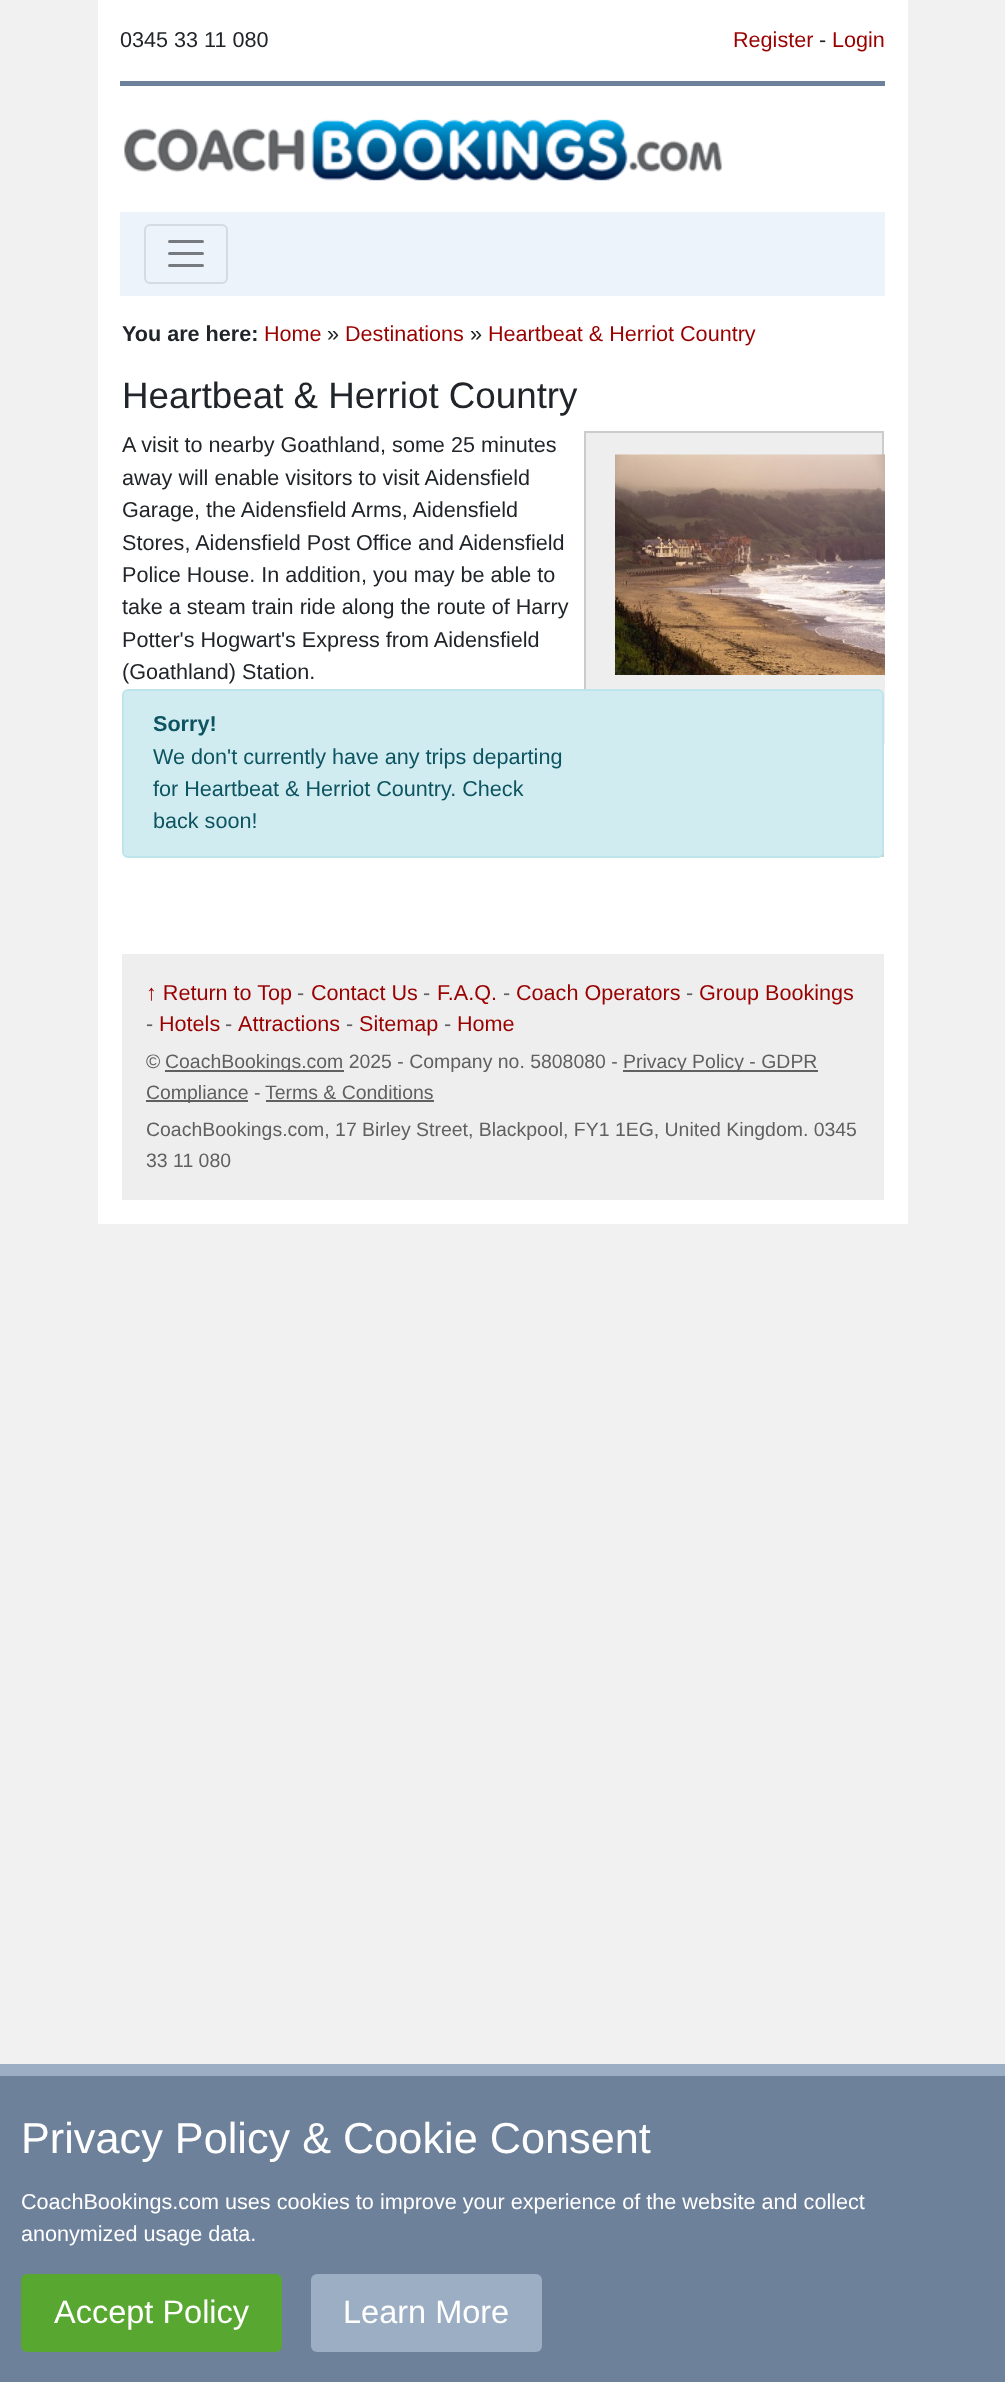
<svg xmlns="http://www.w3.org/2000/svg" xmlns:xlink="http://www.w3.org/1999/xlink" width="1005" height="2382" viewBox="0 0 1005 2382">
<style>
.cls-1{font:21.6px Liberation Sans;fill:#212529}
.cls-2{font:21.6px Liberation Sans;fill:#990000}
.cls-3{font:bold 21.6px Liberation Sans;fill:#212529}
.cls-4{font:36.75px Liberation Sans;fill:#212529}
.cls-5{font:bold 21.6px Liberation Sans;fill:#0c5460}
.cls-6{font:21.6px Liberation Sans;fill:#0c5460}
.cls-7{font:21.6px Liberation Sans;fill:#606060}
.cls-8{font:19.45px Liberation Sans;fill:#606060}
.cls-9{font:43.25px Liberation Sans;fill:#ffffff}
.cls-10{font:21.6px Liberation Sans;fill:#ffffff}
.cls-11{font:32.5px Liberation Sans;fill:#ffffff}
</style>
<rect width="100%" height="100%" fill="#f1f1f1"/>
<rect fill="#ffffff" x="98" y="0" width="810" height="1224"/>
<rect fill="#6e819b" x="120" y="81" width="765" height="5"/>
<image xlink:href="image0.png" x="124" y="119" width="598" height="62"/>
<rect fill="#ecf3fb" x="120" y="212" width="765" height="84"/>
<rect fill="none" stroke="#d4dbe2" stroke-width="2" x="145" y="225" width="82" height="58" rx="5"/>
<path fill="none" stroke="#767a7e" stroke-width="3" stroke-linecap="round" d="M169.5 241.5H202.5M169.5 253.5H202.5M169.5 265.5H202.5"/>
<rect fill="#eeeeee" x="586" y="433" width="296" height="256"/>
<rect fill="none" stroke="#cccccc" stroke-width="2" x="585" y="432" width="298" height="424"/>
<rect fill="#eeeeee" x="615" y="675" width="270" height="69"/>
<image xlink:href="image1.png" x="615" y="454" width="270" height="221"/>
<rect fill="#d1ecf1" stroke="#bee5eb" stroke-width="2" x="123" y="690" width="760" height="167" rx="5"/>
<rect fill="#eeeeee" x="122" y="954" width="762" height="246"/>
<rect fill="#606060" x="623" y="1070" width="195" height="2"/>
<rect fill="#606060" x="146" y="1100" width="102" height="2"/>
<rect fill="#606060" x="266" y="1100" width="168" height="2"/>
<rect fill="#606060" x="165" y="1070" width="179" height="2"/>
<rect fill="#6e819b" x="0" y="2076" width="1005" height="306"/>
<rect fill="#9baec4" x="0" y="2064" width="1005" height="12"/>
<rect fill="#58a730" x="21" y="2274" width="261" height="78" rx="6"/>
<rect fill="#9baec4" x="311" y="2274" width="231" height="78" rx="6"/>
<text class="cls-1" x="120" y="47">0345 33 11 080</text>
<text class="cls-2" x="733" y="47">Register</text>
<text class="cls-1" x="819" y="47">-</text>
<text class="cls-2" x="832" y="47">Login</text>
<text class="cls-3" x="122" y="341">You are here:</text>
<text class="cls-2" x="264" y="341">Home</text>
<text class="cls-1" x="327" y="341">»</text>
<text class="cls-2" x="345" y="341">Destinations</text>
<text class="cls-1" x="470" y="341">»</text>
<text class="cls-2" x="488" y="341">Heartbeat &amp; Herriot Country</text>
<text class="cls-4" x="122" y="408">Heartbeat &amp; Herriot Country</text>
<text class="cls-1"><tspan x="122" y="452">A visit to nearby Goathland, some 25 minutes</tspan><tspan x="122" y="485">away will enable visitors to visit Aidensfield</tspan><tspan x="122" y="517">Garage, the Aidensfield Arms, Aidensfield</tspan><tspan x="122" y="550">Stores, Aidensfield Post Office and Aidensfield</tspan><tspan x="122" y="582">Police House. In addition, you may be able to</tspan><tspan x="122" y="614">take a steam train ride along the route of Harry</tspan><tspan x="122" y="647">Potter's Hogwart's Express from Aidensfield</tspan><tspan x="122" y="679">(Goathland) Station.</tspan></text>
<text class="cls-5" x="153" y="731">Sorry!</text>
<text class="cls-6"><tspan x="153" y="764">We don't currently have any trips departing</tspan><tspan x="153" y="796">for Heartbeat &amp; Herriot Country. Check</tspan><tspan x="153" y="828">back soon!</tspan></text>
<text class="cls-2" x="146" y="1000">↑ Return to Top</text>
<text class="cls-7" x="297" y="1000">-</text>
<text class="cls-2" x="311" y="1000">Contact Us</text>
<text class="cls-7" x="423" y="1000">-</text>
<text class="cls-2" x="437" y="1000">F.A.Q.</text>
<text class="cls-7" x="503" y="1000">-</text>
<text class="cls-2" x="516" y="1000">Coach Operators</text>
<text class="cls-7" x="686" y="1000">-</text>
<text class="cls-2" x="699" y="1000">Group Bookings</text>
<text class="cls-7" x="146" y="1031">-</text>
<text class="cls-2" x="159" y="1031">Hotels</text>
<text class="cls-7" x="225" y="1031">-</text>
<text class="cls-2" x="238" y="1031">Attractions</text>
<text class="cls-7" x="346" y="1031">-</text>
<text class="cls-2" x="359" y="1031">Sitemap</text>
<text class="cls-7" x="444" y="1031">-</text>
<text class="cls-2" x="457" y="1031">Home</text>
<text class="cls-8" x="623" y="1068">Privacy Policy - GDPR</text>
<text class="cls-8" x="146" y="1099">Compliance -</text>
<text class="cls-8" x="265" y="1099">Terms &amp; Conditions</text>
<text class="cls-8"><tspan x="146" y="1136">CoachBookings.com, 17 Birley Street, Blackpool, FY1 1EG, United Kingdom. 0345</tspan><tspan x="146" y="1167">33 11 080</tspan></text>
<text class="cls-8" x="146" y="1068">©</text>
<text class="cls-8" x="165" y="1068">CoachBookings.com 2025 - Company no. 5808080 -</text>
<text class="cls-9" x="21" y="2153">Privacy Policy &amp; Cookie Consent</text>
<text class="cls-10"><tspan x="21" y="2209">CoachBookings.com uses cookies to improve your experience of the website and collect</tspan><tspan x="21" y="2241">anonymized usage data.</tspan></text>
<text class="cls-11" x="54" y="2323">Accept Policy</text>
<text class="cls-11" x="343" y="2323">Learn More</text>
</svg>
